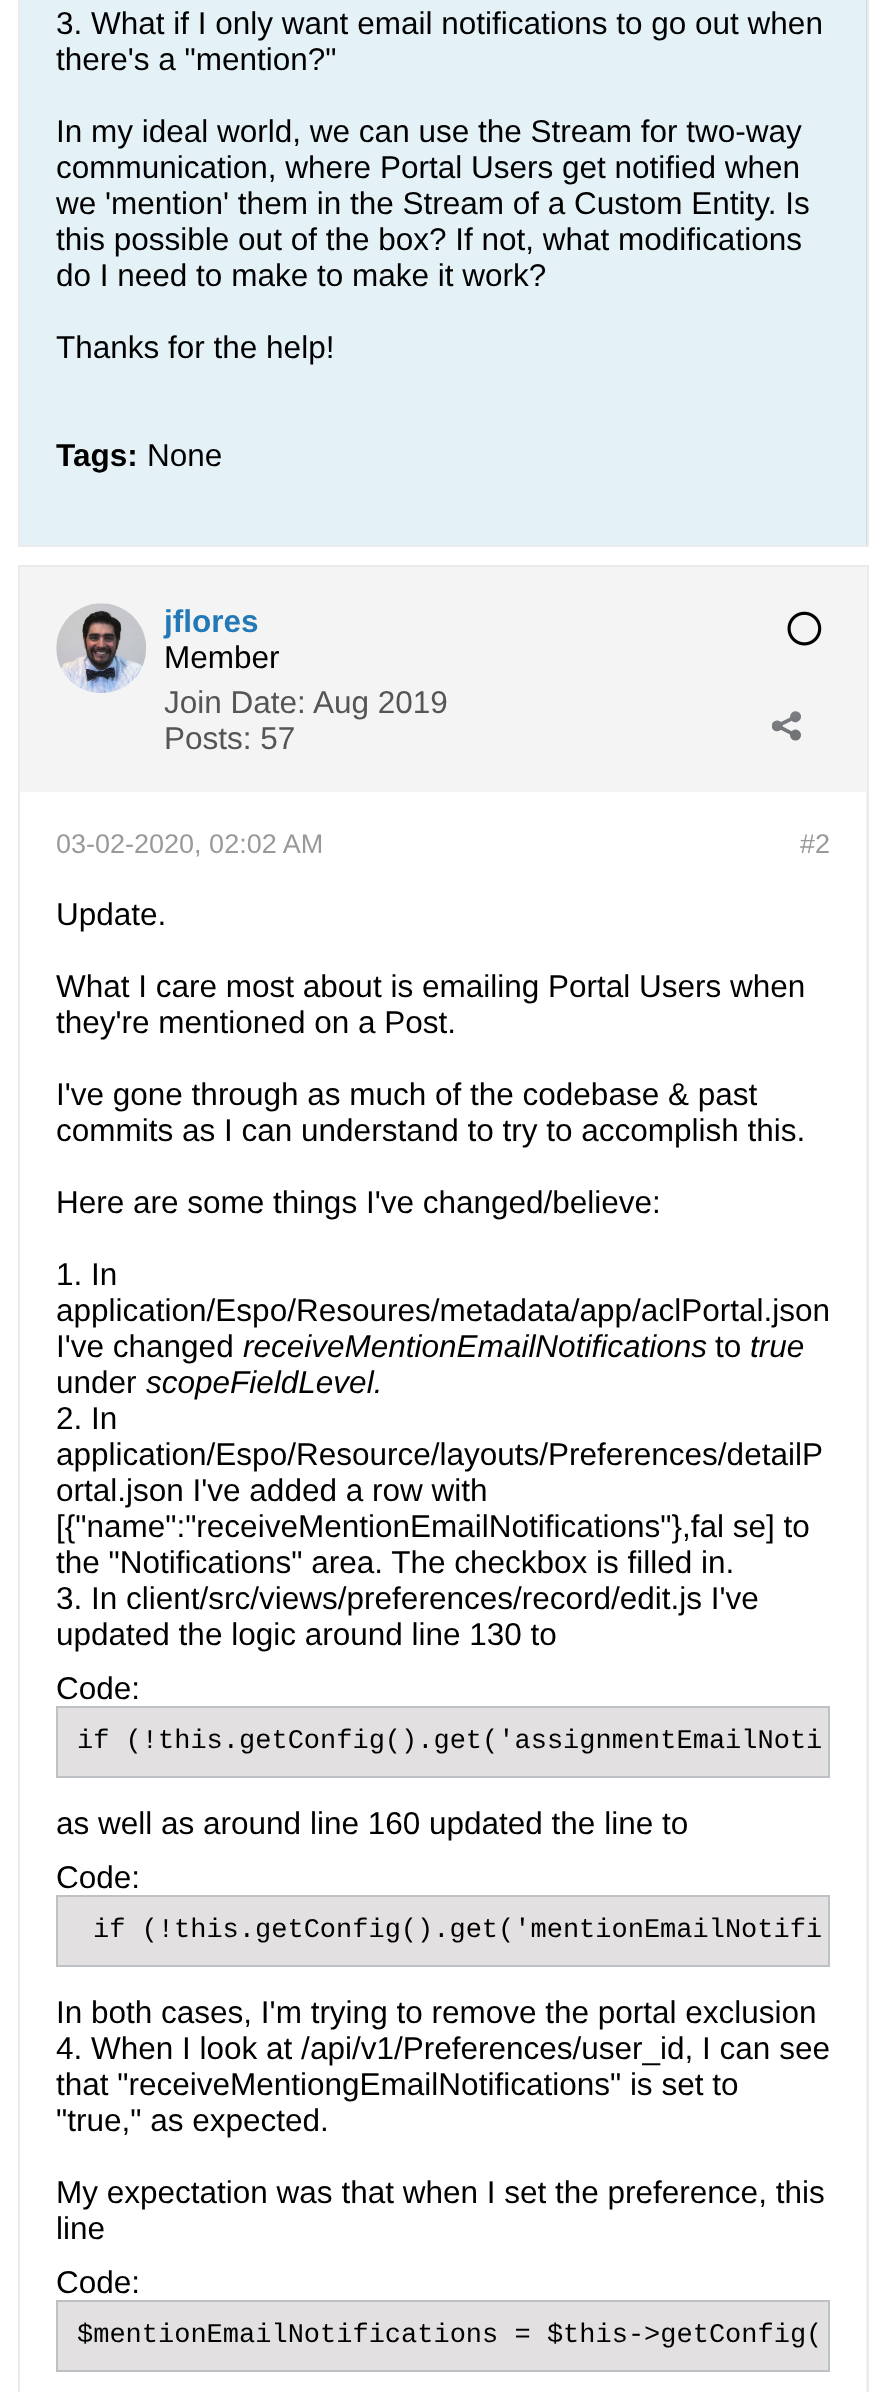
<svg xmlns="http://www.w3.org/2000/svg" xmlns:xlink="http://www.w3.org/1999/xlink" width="885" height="2392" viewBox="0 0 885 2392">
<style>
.cls-1{font:31.5px Liberation Sans;fill:#000000}
.cls-2{font:bold 31.5px Liberation Sans;fill:#000000}
.cls-3{font:bold 31.5px Liberation Sans;fill:#2379b5}
.cls-4{font:31.5px Liberation Sans;fill:#555555}
.cls-5{font:27px Liberation Sans;fill:#999999}
.cls-6{font:italic 31.5px Liberation Sans;fill:#000000}
.cls-7{font:27px Liberation Mono;fill:#000000}
</style>
<rect width="100%" height="100%" fill="#ffffff"/>
<rect fill="#c2dfeb" x="866" y="0" width="1" height="545"/>
<rect fill="none" stroke="#eceaea" stroke-width="2" x="19" y="-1" width="849" height="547"/>
<rect fill="#e4f1f6" x="20" y="0" width="846" height="545"/>
<rect fill="#f5f4f4" stroke="#eceaea" stroke-width="2" x="19" y="566" width="849" height="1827"/>
<image xlink:href="image0.png" x="56" y="603" width="90" height="90"/>
<image xlink:href="image1.png" x="787" y="611" width="35" height="35"/>
<image xlink:href="image2.png" x="772" y="711" width="29" height="30"/>
<rect fill="#ffffff" x="20" y="792" width="846" height="1600"/>
<rect fill="#e2e0e0" stroke="#bdc0c4" stroke-width="2" x="57" y="1707" width="772" height="70"/>
<rect fill="#e2e0e0" stroke="#bdc0c4" stroke-width="2" x="57" y="1896" width="772" height="70"/>
<rect fill="#e2e0e0" stroke="#bdc0c4" stroke-width="2" x="57" y="2301" width="772" height="70"/>
<text class="cls-1"><tspan x="56" y="34">3. What if I only want email notifications to go out when</tspan><tspan x="56" y="70">there's a "mention?"</tspan></text>
<text class="cls-1"><tspan x="56" y="142">In my ideal world, we can use the Stream for two-way</tspan><tspan x="56" y="178">communication, where Portal Users get notified when</tspan><tspan x="56" y="214">we 'mention' them in the Stream of a Custom Entity. Is</tspan><tspan x="56" y="250">this possible out of the box? If not, what modifications</tspan><tspan x="56" y="286">do I need to make to make it work?</tspan></text>
<text class="cls-1" x="56" y="358">Thanks for the help!</text>
<text class="cls-2" x="56" y="466">Tags:</text>
<text class="cls-1" x="147" y="466">None</text>
<text class="cls-3" x="164" y="632">jflores</text>
<text class="cls-1" x="164" y="668">Member</text>
<text class="cls-4" x="164" y="713">Join Date:</text>
<text class="cls-4" x="313" y="713">Aug 2019</text>
<text class="cls-4" x="164" y="749">Posts: 57</text>
<text class="cls-5" x="56" y="853">03-02-2020, 02:02 AM</text>
<text class="cls-5" x="800" y="853">#2</text>
<text class="cls-1" x="56" y="925">Update.</text>
<text class="cls-1"><tspan x="56" y="997">What I care most about is emailing Portal Users when</tspan><tspan x="56" y="1033">they're mentioned on a Post.</tspan></text>
<text class="cls-1"><tspan x="56" y="1105">I've gone through as much of the codebase &amp; past</tspan><tspan x="56" y="1141">commits as I can understand to try to accomplish this.</tspan></text>
<text class="cls-1" x="56" y="1213">Here are some things I've changed/believe:</text>
<text class="cls-1"><tspan x="56" y="1285">1. In</tspan><tspan x="56" y="1321">application/Espo/Resoures/metadata/app/aclPortal.json</tspan><tspan x="56" y="1357">I've changed</tspan></text>
<text class="cls-6" x="243" y="1357">receiveMentionEmailNotifications</text>
<text class="cls-1" x="715" y="1357">to</text>
<text class="cls-6" x="750" y="1357">true</text>
<text class="cls-1" x="56" y="1393">under</text>
<text class="cls-6" x="146" y="1393">scopeFieldLevel.</text>
<text class="cls-1"><tspan x="56" y="1429">2. In</tspan><tspan x="56" y="1465">application/Espo/Resource/layouts/Preferences/detailP</tspan><tspan x="56" y="1501">ortal.json I've added a row with</tspan><tspan x="56" y="1537">[{"name":"receiveMentionEmailNotifications"},fal se] to</tspan><tspan x="56" y="1573">the "Notifications" area. The checkbox is filled in.</tspan><tspan x="56" y="1609">3. In client/src/views/preferences/record/edit.js I've</tspan><tspan x="56" y="1645">updated the logic around line 130 to</tspan><tspan x="56" y="1699">Code:</tspan></text>
<text class="cls-7" x="77" y="1748">if (!this.getConfig().get('assignmentEmailNoti</text>
<text class="cls-1"><tspan x="56" y="1834">as well as around line 160 updated the line to</tspan><tspan x="56" y="1888">Code:</tspan></text>
<text class="cls-7" x="93" y="1937">if (!this.getConfig().get('mentionEmailNotifi</text>
<text class="cls-1"><tspan x="56" y="2023">In both cases, I'm trying to remove the portal exclusion</tspan><tspan x="56" y="2059">4. When I look at /api/v1/Preferences/user_id, I can see</tspan><tspan x="56" y="2095">that "receiveMentiongEmailNotifications" is set to</tspan><tspan x="56" y="2131">"true," as expected.</tspan></text>
<text class="cls-1"><tspan x="56" y="2203">My expectation was that when I set the preference, this</tspan><tspan x="56" y="2239">line</tspan><tspan x="56" y="2293">Code:</tspan></text>
<text class="cls-7" x="77" y="2342">$mentionEmailNotifications = $this-&gt;getConfig(</text>
</svg>
